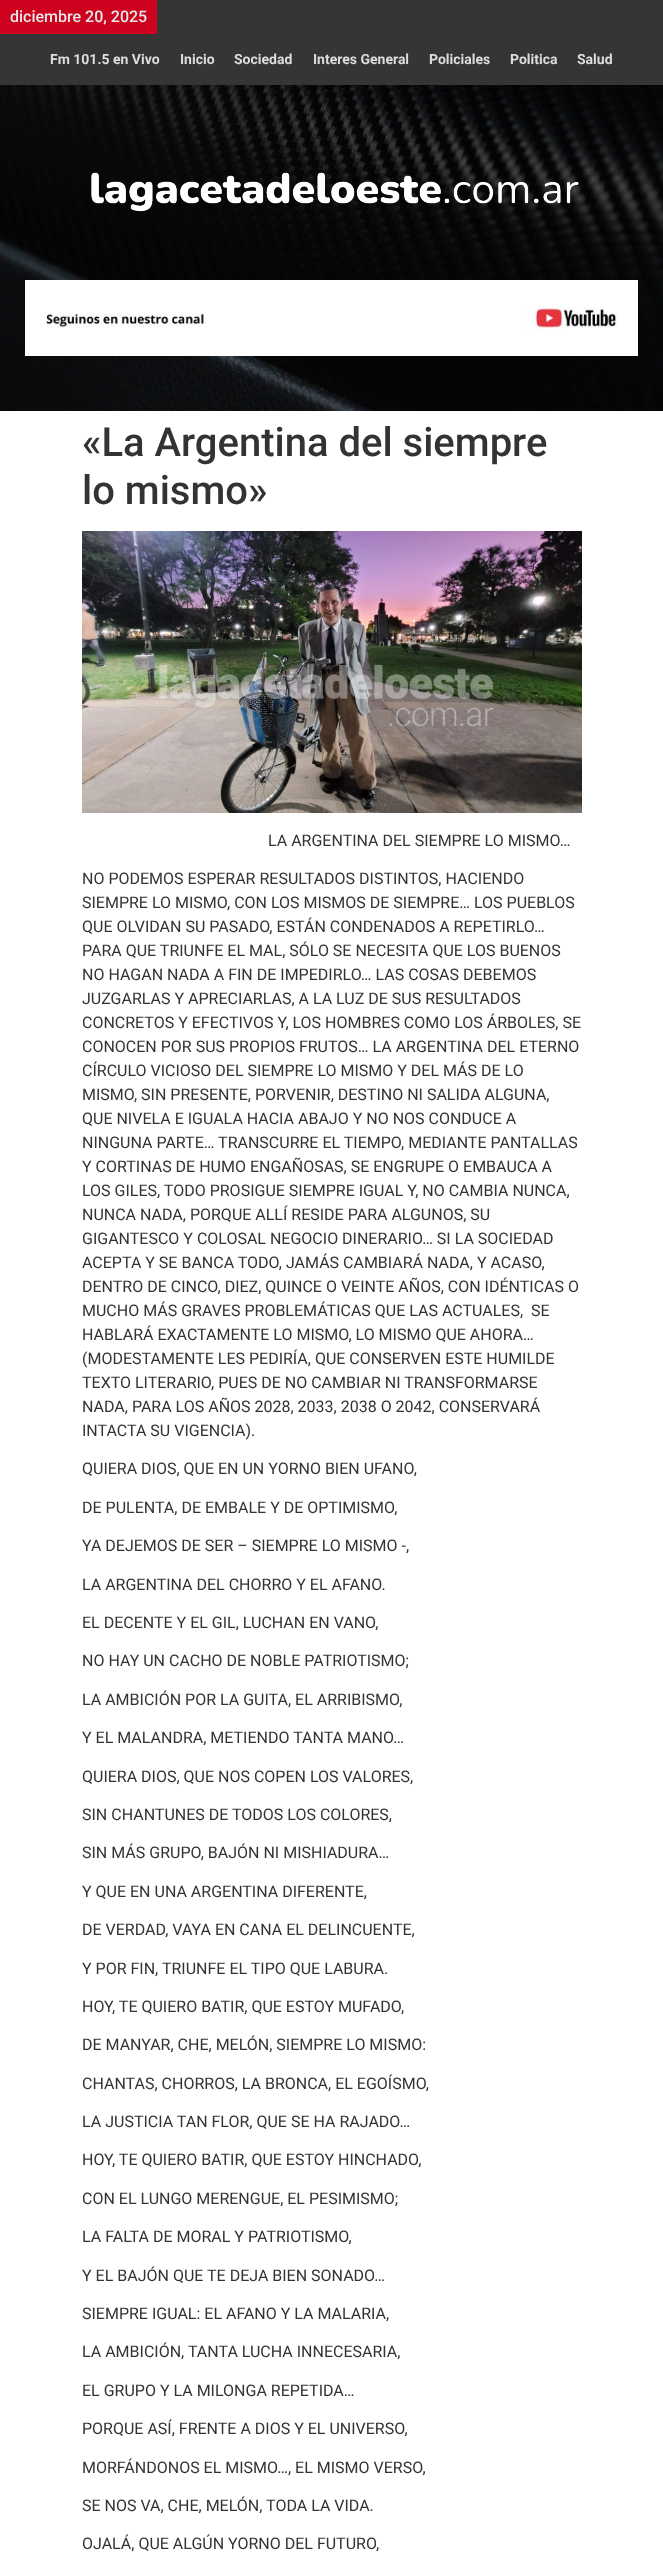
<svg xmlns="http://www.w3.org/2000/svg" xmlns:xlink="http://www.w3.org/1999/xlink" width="663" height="2562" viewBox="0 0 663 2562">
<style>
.cls-1{font:500 16px Roboto;fill:#e7e7e7}
.cls-2{font:bold 14px Roboto;fill:#dddddd}
.cls-3{font:500 40px Roboto;fill:#333333}
.cls-4{font:16px Roboto;fill:#333333}
</style>
<rect width="100%" height="100%" fill="#ffffff"/>
<rect fill="#353535" x="0" y="0" width="663" height="85"/>
<rect fill="#ce011e" x="0" y="0" width="157" height="34"/>
<image xlink:href="image0.png" x="0" y="85" width="663" height="326"/>
<image xlink:href="image1.png" x="91" y="172" width="488" height="40"/>
<image xlink:href="image2.png" x="25" y="280" width="613" height="76"/>
<image xlink:href="image3.png" x="82" y="531" width="500" height="282"/>
<text class="cls-1" x="10" y="22">diciembre 20, 2025</text>
<text class="cls-2" x="50" y="64">Fm 101.5 en Vivo</text>
<text class="cls-2" x="180" y="64">Inicio</text>
<text class="cls-2" x="234" y="64">Sociedad</text>
<text class="cls-2" x="313" y="64">Interes General</text>
<text class="cls-2" x="429" y="64">Policiales</text>
<text class="cls-2" x="510" y="64">Politica</text>
<text class="cls-2" x="577" y="64">Salud</text>
<text class="cls-3"><tspan x="82" y="456">«La Argentina del siempre</tspan><tspan x="82" y="504">lo mismo»</tspan></text>
<text class="cls-4" x="268" y="846">LA ARGENTINA DEL SIEMPRE LO MISMO…</text>
<text class="cls-4" xml:space="preserve"><tspan x="82" y="884">NO PODEMOS ESPERAR RESULTADOS DISTINTOS, HACIENDO</tspan><tspan x="82" y="908">SIEMPRE LO MISMO, CON LOS MISMOS DE SIEMPRE… LOS PUEBLOS</tspan><tspan x="82" y="932">QUE OLVIDAN SU PASADO, ESTÁN CONDENADOS A REPETIRLO…</tspan><tspan x="82" y="956">PARA QUE TRIUNFE EL MAL, SÓLO SE NECESITA QUE LOS BUENOS</tspan><tspan x="82" y="980">NO HAGAN NADA A FIN DE IMPEDIRLO… LAS COSAS DEBEMOS</tspan><tspan x="82" y="1004">JUZGARLAS Y APRECIARLAS, A LA LUZ DE SUS RESULTADOS</tspan><tspan x="82" y="1028">CONCRETOS Y EFECTIVOS Y, LOS HOMBRES COMO LOS ÁRBOLES, SE</tspan><tspan x="82" y="1052">CONOCEN POR SUS PROPIOS FRUTOS… LA ARGENTINA DEL ETERNO</tspan><tspan x="82" y="1076">CÍRCULO VICIOSO DEL SIEMPRE LO MISMO Y DEL MÁS DE LO</tspan><tspan x="82" y="1100">MISMO, SIN PRESENTE, PORVENIR, DESTINO NI SALIDA ALGUNA,</tspan><tspan x="82" y="1124">QUE NIVELA E IGUALA HACIA ABAJO Y NO NOS CONDUCE A</tspan><tspan x="82" y="1148">NINGUNA PARTE… TRANSCURRE EL TIEMPO, MEDIANTE PANTALLAS</tspan><tspan x="82" y="1172">Y CORTINAS DE HUMO ENGAÑOSAS, SE ENGRUPE O EMBAUCA A</tspan><tspan x="82" y="1196">LOS GILES, TODO PROSIGUE SIEMPRE IGUAL Y, NO CAMBIA NUNCA,</tspan><tspan x="82" y="1220">NUNCA NADA, PORQUE ALLÍ RESIDE PARA ALGUNOS, SU</tspan><tspan x="82" y="1244">GIGANTESCO Y COLOSAL NEGOCIO DINERARIO… SI LA SOCIEDAD</tspan><tspan x="82" y="1268">ACEPTA Y SE BANCA TODO, JAMÁS CAMBIARÁ NADA, Y ACASO,</tspan><tspan x="82" y="1292">DENTRO DE CINCO, DIEZ, QUINCE O VEINTE AÑOS, CON IDÉNTICAS O</tspan><tspan x="82" y="1316">MUCHO MÁS GRAVES PROBLEMÁTICAS QUE LAS ACTUALES,  SE</tspan><tspan x="82" y="1340">HABLARÁ EXACTAMENTE LO MISMO, LO MISMO QUE AHORA…</tspan><tspan x="82" y="1364">(MODESTAMENTE LES PEDIRÍA, QUE CONSERVEN ESTE HUMILDE</tspan><tspan x="82" y="1388">TEXTO LITERARIO, PUES DE NO CAMBIAR NI TRANSFORMARSE</tspan><tspan x="82" y="1412">NADA, PARA LOS AÑOS 2028, 2033, 2038 O 2042, CONSERVARÁ</tspan><tspan x="82" y="1436">INTACTA SU VIGENCIA).</tspan></text>
<text class="cls-4" x="82" y="1474">QUIERA DIOS, QUE EN UN YORNO BIEN UFANO,</text>
<text class="cls-4" x="82" y="1513">DE PULENTA, DE EMBALE Y DE OPTIMISMO,</text>
<text class="cls-4" x="82" y="1551">YA DEJEMOS DE SER – SIEMPRE LO MISMO -,</text>
<text class="cls-4" x="82" y="1590">LA ARGENTINA DEL CHORRO Y EL AFANO.</text>
<text class="cls-4" x="82" y="1628">EL DECENTE Y EL GIL, LUCHAN EN VANO,</text>
<text class="cls-4" x="82" y="1666">NO HAY UN CACHO DE NOBLE PATRIOTISMO;</text>
<text class="cls-4" x="82" y="1705">LA AMBICIÓN POR LA GUITA, EL ARRIBISMO,</text>
<text class="cls-4" x="82" y="1743">Y EL MALANDRA, METIENDO TANTA MANO…</text>
<text class="cls-4" x="82" y="1782">QUIERA DIOS, QUE NOS COPEN LOS VALORES,</text>
<text class="cls-4" x="82" y="1820">SIN CHANTUNES DE TODOS LOS COLORES,</text>
<text class="cls-4" x="82" y="1858">SIN MÁS GRUPO, BAJÓN NI MISHIADURA…</text>
<text class="cls-4" x="82" y="1897">Y QUE EN UNA ARGENTINA DIFERENTE,</text>
<text class="cls-4" x="82" y="1935">DE VERDAD, VAYA EN CANA EL DELINCUENTE,</text>
<text class="cls-4" x="82" y="1974">Y POR FIN, TRIUNFE EL TIPO QUE LABURA.</text>
<text class="cls-4" x="82" y="2012">HOY, TE QUIERO BATIR, QUE ESTOY MUFADO,</text>
<text class="cls-4" x="82" y="2050">DE MANYAR, CHE, MELÓN, SIEMPRE LO MISMO:</text>
<text class="cls-4" x="82" y="2089">CHANTAS, CHORROS, LA BRONCA, EL EGOÍSMO,</text>
<text class="cls-4" x="82" y="2127">LA JUSTICIA TAN FLOR, QUE SE HA RAJADO…</text>
<text class="cls-4" x="82" y="2165">HOY, TE QUIERO BATIR, QUE ESTOY HINCHADO,</text>
<text class="cls-4" x="82" y="2204">CON EL LUNGO MERENGUE, EL PESIMISMO;</text>
<text class="cls-4" x="82" y="2242">LA FALTA DE MORAL Y PATRIOTISMO,</text>
<text class="cls-4" x="82" y="2281">Y EL BAJÓN QUE TE DEJA BIEN SONADO…</text>
<text class="cls-4" x="82" y="2319">SIEMPRE IGUAL: EL AFANO Y LA MALARIA,</text>
<text class="cls-4" x="82" y="2357">LA AMBICIÓN, TANTA LUCHA INNECESARIA,</text>
<text class="cls-4" x="82" y="2396">EL GRUPO Y LA MILONGA REPETIDA…</text>
<text class="cls-4" x="82" y="2434">PORQUE ASÍ, FRENTE A DIOS Y EL UNIVERSO,</text>
<text class="cls-4" x="82" y="2473">MORFÁNDONOS EL MISMO…, EL MISMO VERSO,</text>
<text class="cls-4" x="82" y="2511">SE NOS VA, CHE, MELÓN, TODA LA VIDA.</text>
<text class="cls-4" x="82" y="2549">OJALÁ, QUE ALGÚN YORNO DEL FUTURO,</text>
</svg>
